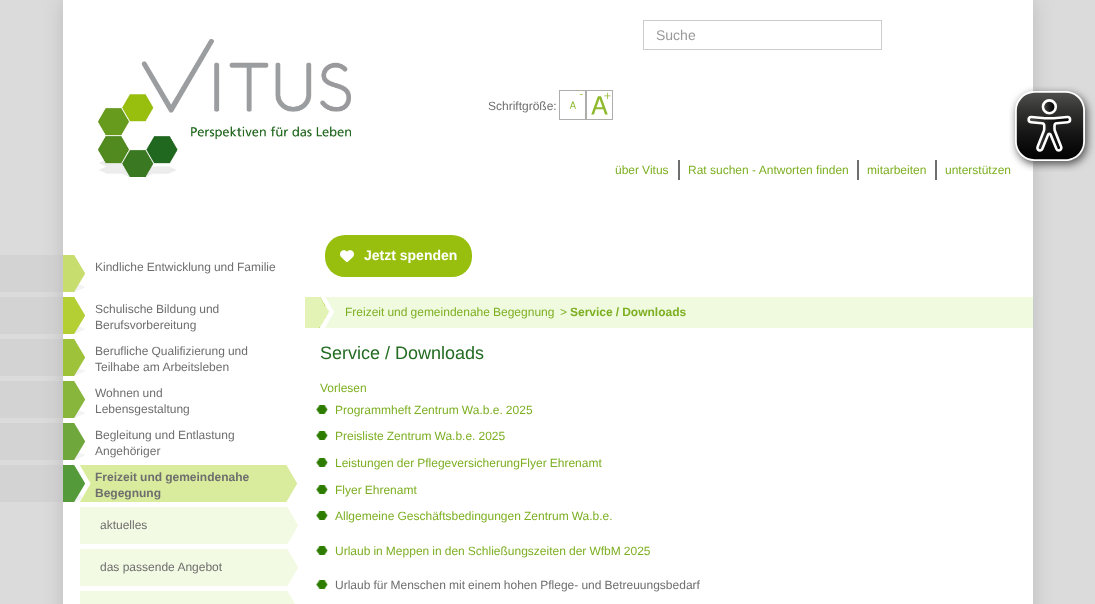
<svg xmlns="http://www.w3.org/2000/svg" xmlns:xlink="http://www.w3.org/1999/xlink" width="1095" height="604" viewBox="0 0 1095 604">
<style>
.cls-1{font:14px Liberation Sans;fill:#999999}
.cls-2{font:12px Liberation Sans;fill:#6e6e6e}
.cls-3{font:12px Liberation Sans;fill:#7daf22}
.cls-4{font:bold 12px Liberation Sans;fill:#6e6e6e}
.cls-5{font:bold 14px Liberation Sans;fill:#ffffff}
.cls-6{font:bold 12px Liberation Sans;fill:#7daf22}
.cls-7{font:18px Liberation Sans;fill:#226b20}
</style>
<rect width="100%" height="100%" fill="#dbdbdb"/>
<rect fill="#d3d3d3" x="0" y="255" width="63" height="37"/>
<rect fill="#d3d3d3" x="0" y="297" width="63" height="37"/>
<rect fill="#d3d3d3" x="0" y="339" width="63" height="37"/>
<rect fill="#d3d3d3" x="0" y="381" width="63" height="37"/>
<rect fill="#d3d3d3" x="0" y="423" width="63" height="37"/>
<rect fill="#d3d3d3" x="0" y="465" width="63" height="37"/>
<rect fill="#bbbbbb" filter="blur(10px)" x="63" y="0" width="970" height="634"/>
<rect fill="#ffffff" x="63" y="0" width="970" height="604"/>
<rect fill="none" stroke="#cccccc" x="643.5" y="20.5" width="238" height="29"/>
<image xlink:href="image0.png" x="98" y="39" width="253" height="138"/>
<image xlink:href="image1.png" x="559" y="90" width="27" height="30"/>
<image xlink:href="image2.png" x="586" y="90" width="27" height="30"/>
<rect fill="#6e6e6e" x="678" y="160" width="2" height="20"/>
<rect fill="#6e6e6e" x="857" y="160" width="2" height="20"/>
<rect fill="#6e6e6e" x="935" y="160" width="2" height="20"/>
<image xlink:href="image3.png" x="63" y="255" width="22" height="37"/>
<image xlink:href="image4.png" x="63" y="297" width="22" height="37"/>
<image xlink:href="image5.png" x="63" y="339" width="22" height="37"/>
<image xlink:href="image6.png" x="63" y="381" width="22" height="37"/>
<image xlink:href="image7.png" x="63" y="423" width="22" height="37"/>
<image xlink:href="image8.png" x="63" y="465" width="22" height="37"/>
<image xlink:href="image9.png" x="80" y="465" width="217" height="37"/>
<image xlink:href="image10.png" x="80" y="507" width="218" height="37"/>
<image xlink:href="image10.png" x="80" y="549" width="218" height="37"/>
<image xlink:href="image11.png" x="80" y="591" width="215" height="13"/>
<rect fill="#98bf0e" x="325" y="235" width="147" height="42" rx="20"/>
<image xlink:href="image12.png" x="340" y="250" width="14" height="13"/>
<rect fill="#f0fadf" x="325" y="297" width="708" height="31"/>
<image xlink:href="image13.png" x="305" y="297" width="29" height="31"/>
<image xlink:href="image14.png" x="316" y="405" width="12" height="9"/>
<image xlink:href="image14.png" x="316" y="431" width="12" height="9"/>
<image xlink:href="image14.png" x="316" y="458" width="12" height="9"/>
<image xlink:href="image14.png" x="316" y="485" width="12" height="9"/>
<image xlink:href="image14.png" x="316" y="511" width="12" height="9"/>
<image xlink:href="image14.png" x="316" y="546" width="12" height="9"/>
<image xlink:href="image14.png" x="316" y="580" width="12" height="9"/>
<text class="cls-1" x="656" y="40">Suche</text>
<text class="cls-2" x="488" y="110">Schriftgröße:</text>
<text class="cls-3" x="615" y="174" word-spacing="-0.25">über Vitus</text>
<text class="cls-3" x="688" y="174">Rat suchen - Antworten finden</text>
<text class="cls-3" x="867" y="174">mitarbeiten</text>
<text class="cls-3" x="945" y="174">unterstützen</text>
<text class="cls-2" x="95" y="271" word-spacing="-0.25">Kindliche Entwicklung und Familie</text>
<text class="cls-2"><tspan x="95" y="313" word-spacing="-0.25">Schulische Bildung und</tspan><tspan x="95" y="329">Berufsvorbereitung</tspan></text>
<text class="cls-2"><tspan x="95" y="355" word-spacing="-0.25">Berufliche Qualifizierung und</tspan><tspan x="95" y="371">Teilhabe am Arbeitsleben</tspan></text>
<text class="cls-2"><tspan x="95" y="397" word-spacing="-0.25">Wohnen und</tspan><tspan x="95" y="413">Lebensgestaltung</tspan></text>
<text class="cls-2"><tspan x="95" y="439" word-spacing="-0.25">Begleitung und Entlastung</tspan><tspan x="95" y="455">Angehöriger</tspan></text>
<text class="cls-4"><tspan x="95" y="481" word-spacing="-0.25">Freizeit und gemeindenahe</tspan><tspan x="95" y="497">Begegnung</tspan></text>
<text class="cls-2" x="100" y="529">aktuelles</text>
<text class="cls-2" x="100" y="571">das passende Angebot</text>
<text class="cls-5" x="364" y="260">Jetzt spenden</text>
<text class="cls-3" x="345" y="316" word-spacing="-0.25">Freizeit und gemeindenahe Begegnung</text>
<text class="cls-3" x="560" y="316">&gt;</text>
<text class="cls-6" x="570" y="316" word-spacing="-0.25">Service / Downloads</text>
<text class="cls-7" x="320" y="359">Service / Downloads</text>
<text class="cls-3" x="320" y="392">Vorlesen</text>
<text class="cls-3" x="335" y="414" word-spacing="-0.25">Programmheft Zentrum Wa.b.e. 2025</text>
<text class="cls-3" x="335" y="440" word-spacing="-0.25">Preisliste Zentrum Wa.b.e. 2025</text>
<text class="cls-3" x="335" y="467" word-spacing="-0.25">Leistungen der PflegeversicherungFlyer Ehrenamt</text>
<text class="cls-3" x="335" y="494" word-spacing="-0.25">Flyer Ehrenamt</text>
<text class="cls-3" x="335" y="520" word-spacing="-0.25">Allgemeine Geschäftsbedingungen Zentrum Wa.b.e.</text>
<text class="cls-3" x="335" y="555" word-spacing="-0.25">Urlaub in Meppen in den Schließungszeiten der WfbM 2025</text>
<text class="cls-2" x="335" y="589" word-spacing="-0.25">Urlaub für Menschen mit einem hohen Pflege- und Betreuungsbedarf</text>
<image xlink:href="image15.png" x="1009" y="86" width="86" height="86"/>
</svg>
